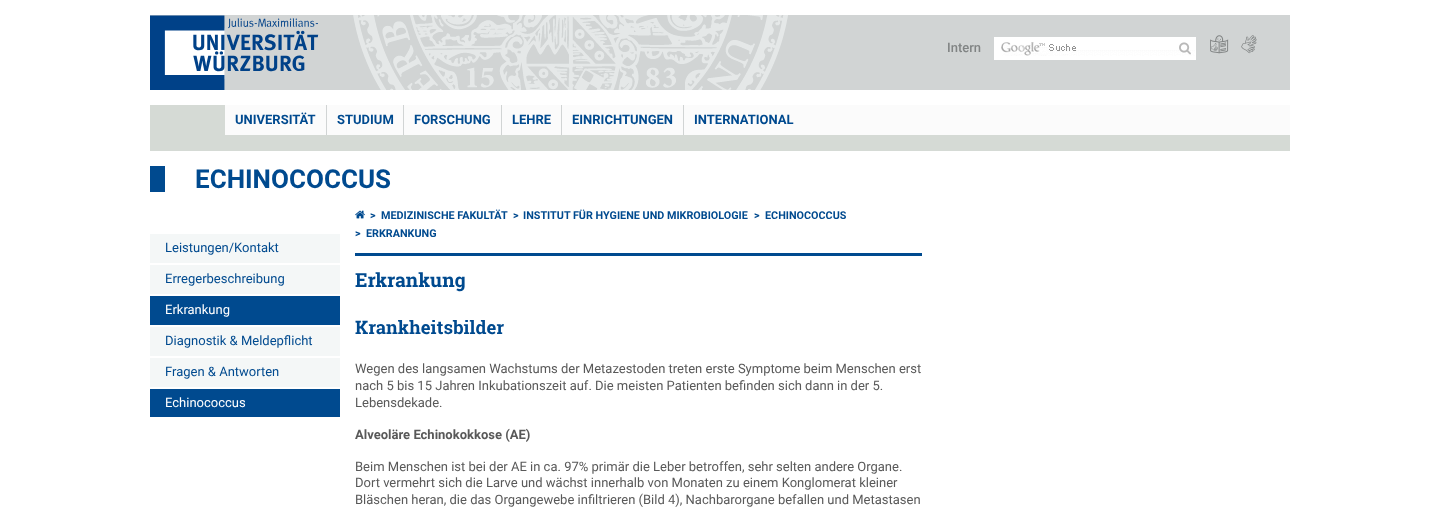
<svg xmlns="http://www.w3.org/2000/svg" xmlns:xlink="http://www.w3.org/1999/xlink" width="1440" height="509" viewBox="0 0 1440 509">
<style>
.cls-1{font:500 13px Roboto;fill:#818484}
.cls-2{font:bold 13px Roboto;fill:#004a8f}
.cls-3{font:bold 26px Roboto;fill:#004a8f}
.cls-4{font:13px Roboto;fill:#004a8f}
.cls-5{font:13px Roboto;fill:#ffffff}
.cls-6{font:bold 10.8px Roboto;fill:#004a8f}
.cls-7{font:bold 19.5px Roboto Slab;fill:#004a8f}
.cls-8{font:bold 18.5px Roboto Slab;fill:#004a8f}
.cls-9{font:13px Roboto;fill:#595959}
.cls-10{font:bold 13px Roboto;fill:#595959}
</style>
<rect width="100%" height="100%" fill="#ffffff"/>
<rect fill="#d1d4d4" x="150" y="15" width="1140" height="75"/>
<image xlink:href="image0.png" x="353" y="15" width="435" height="75"/>
<image xlink:href="image1.png" x="150" y="15" width="169" height="75"/>
<rect fill="#ffffff" x="994" y="37" width="202" height="23"/>
<image xlink:href="image2.png" x="1001" y="42" width="194" height="14"/>
<image xlink:href="image3.png" x="1179" y="42" width="12" height="13"/>
<image xlink:href="image4.png" x="1210" y="35" width="19" height="19"/>
<image xlink:href="image5.png" x="1241" y="35" width="16" height="19"/>
<rect fill="#d5dad5" x="150" y="105" width="1140" height="46"/>
<rect fill="#fbfbfb" x="225" y="105" width="1065" height="30"/>
<rect fill="#d1d4d4" x="326" y="105" width="1" height="30"/>
<rect fill="#d1d4d4" x="403" y="105" width="1" height="30"/>
<rect fill="#d1d4d4" x="501" y="105" width="1" height="30"/>
<rect fill="#d1d4d4" x="561" y="105" width="1" height="30"/>
<rect fill="#d1d4d4" x="683" y="105" width="1" height="30"/>
<rect fill="#004a8f" x="150" y="166" width="15" height="26"/>
<rect fill="#f4f7f7" x="150" y="234" width="190" height="29"/>
<rect fill="#f4f7f7" x="150" y="265" width="190" height="29"/>
<rect fill="#004a8f" x="150" y="296" width="190" height="29"/>
<rect fill="#f4f7f7" x="150" y="327" width="190" height="29"/>
<rect fill="#f4f7f7" x="150" y="358" width="190" height="29"/>
<rect fill="#004a8f" x="150" y="389" width="190" height="28"/>
<rect fill="#004a8f" x="355" y="253" width="567" height="3"/>
<image xlink:href="image6.png" x="355" y="210" width="10" height="9"/>
<text class="cls-1" x="947" y="52">Intern</text>
<text class="cls-2" x="235" y="124">UNIVERSITÄT</text>
<text class="cls-2" x="337" y="124">STUDIUM</text>
<text class="cls-2" x="414" y="124">FORSCHUNG</text>
<text class="cls-2" x="512" y="124">LEHRE</text>
<text class="cls-2" x="572" y="124">EINRICHTUNGEN</text>
<text class="cls-2" x="694" y="124">INTERNATIONAL</text>
<text class="cls-3" x="195" y="188">ECHINOCOCCUS</text>
<text class="cls-4" x="165" y="252">Leistungen/Kontakt</text>
<text class="cls-4" x="165" y="283">Erregerbeschreibung</text>
<text class="cls-5" x="165" y="314">Erkrankung</text>
<text class="cls-4" x="165" y="345">Diagnostik &amp; Meldepflicht</text>
<text class="cls-4" x="165" y="376">Fragen &amp; Antworten</text>
<text class="cls-5" x="165" y="407">Echinococcus</text>
<text class="cls-6" x="370" y="219">&gt;</text>
<text class="cls-6" x="381" y="219">MEDIZINISCHE FAKULTÄT</text>
<text class="cls-6" x="513" y="219">&gt;</text>
<text class="cls-6" x="523" y="219">INSTITUT FÜR HYGIENE UND MIKROBIOLOGIE</text>
<text class="cls-6" x="754" y="219">&gt;</text>
<text class="cls-6" x="765" y="219">ECHINOCOCCUS</text>
<text class="cls-6" x="355" y="237">&gt;</text>
<text class="cls-6" x="366" y="237">ERKRANKUNG</text>
<text class="cls-7" x="355" y="287">Erkrankung</text>
<text class="cls-8" x="355" y="334">Krankheitsbilder</text>
<text class="cls-9"><tspan x="355" y="373">Wegen des langsamen Wachstums der Metazestoden treten erste Symptome beim Menschen erst</tspan><tspan x="355" y="390">nach 5 bis 15 Jahren Inkubationszeit auf. Die meisten Patienten befinden sich dann in der 5.</tspan><tspan x="355" y="407">Lebensdekade.</tspan></text>
<text class="cls-10" x="355" y="439">Alveoläre Echinokokkose (AE)</text>
<text class="cls-9"><tspan x="355" y="471">Beim Menschen ist bei der AE in ca. 97% primär die Leber betroffen, sehr selten andere Organe.</tspan><tspan x="355" y="487">Dort vermehrt sich die Larve und wächst innerhalb von Monaten zu einem Konglomerat kleiner</tspan><tspan x="355" y="504">Bläschen heran, die das Organgewebe infiltrieren (Bild 4), Nachbarorgane befallen und Metastasen</tspan></text>
</svg>
